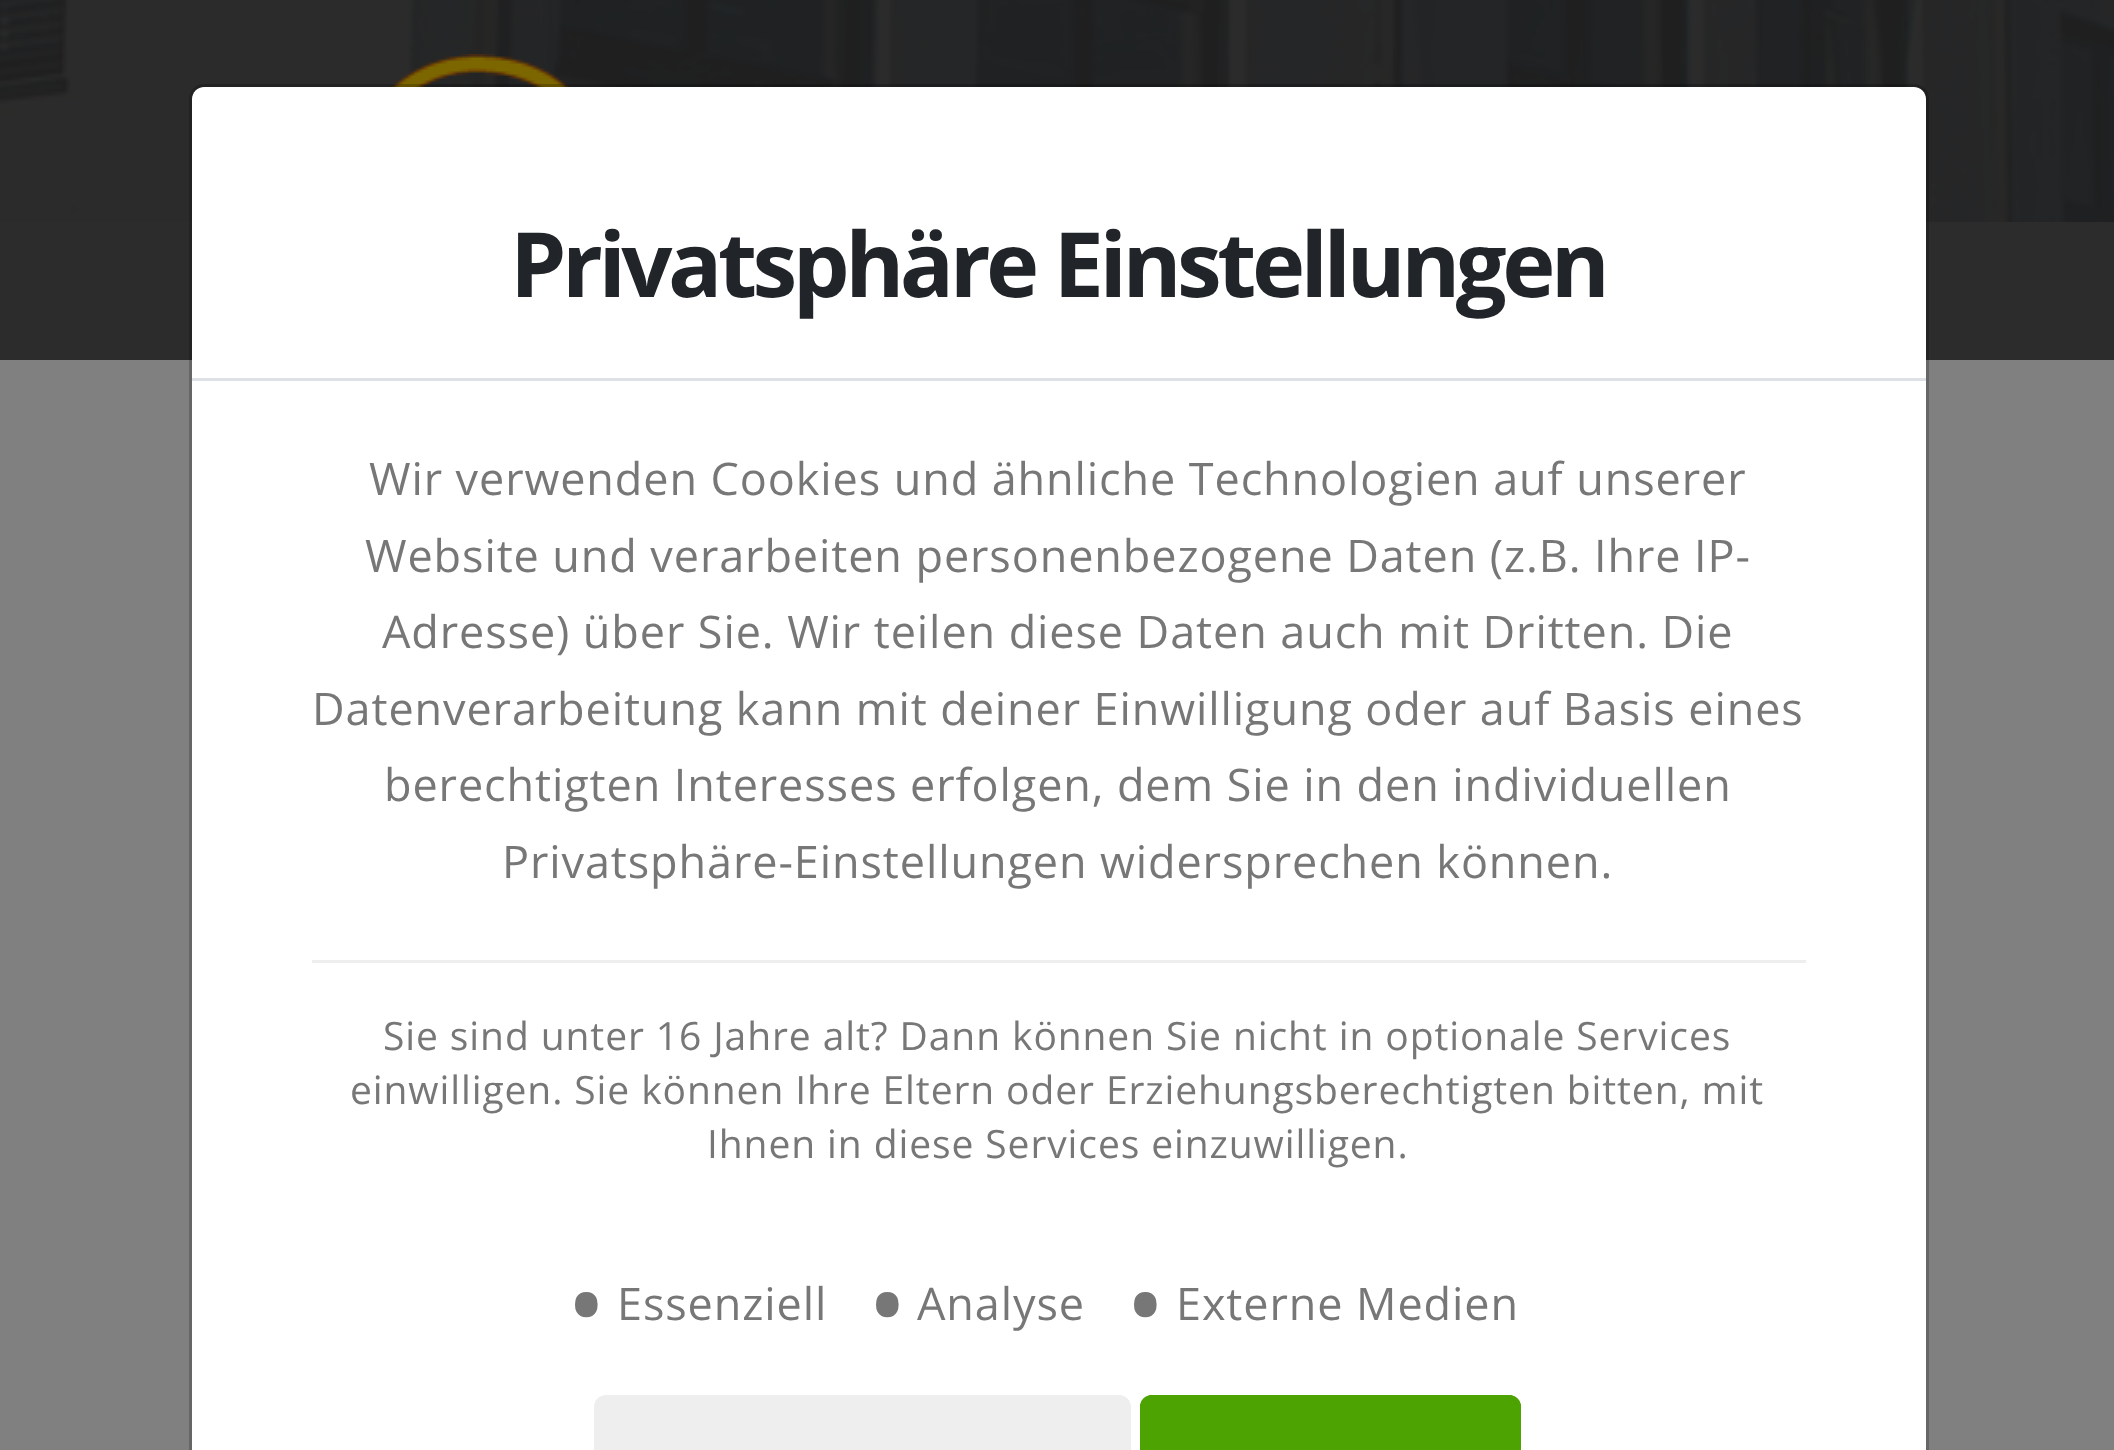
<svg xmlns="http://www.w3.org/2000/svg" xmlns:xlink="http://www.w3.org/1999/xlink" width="2114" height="1450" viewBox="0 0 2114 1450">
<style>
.cls-1{font:bold 90px Open Sans;letter-spacing:-4.5px;fill:#212529}
.cls-2{font:45px Open Sans;letter-spacing:0.9px;fill:#777777}
.cls-3{font:39px Open Sans;letter-spacing:0.9px;fill:#777777}
.cls-4{font:108px Open Sans;letter-spacing:0.9px;fill:#777777}
</style>
<rect width="100%" height="100%" fill="#808080"/>
<rect fill="#2c2c2c" x="0" y="222" width="2114" height="138"/>
<image xlink:href="image0.png" x="0" y="0" width="2114" height="222"/>
<image xlink:href="image1.png" x="389" y="54" width="182" height="33"/>
<path fill="#ffffff" d="M204 87H1914C1920.5 87 1926 92.5 1926 99V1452H192V99C192 92.5 197.5 87 204 87Z"/>
<rect fill="none" stroke="#000000" stroke-opacity="0.2" stroke-width="3" x="190.5" y="85.5" width="1737" height="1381" rx="13.5"/>
<rect fill="#dee2e6" x="192" y="378" width="1734" height="3"/>
<rect fill="#eeeeee" x="312" y="960" width="1494" height="3"/>
<path fill="#eeeeee" d="M606 1395H1119C1125.5 1395 1131 1400.5 1131 1407V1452H594V1407C594 1400.5 599.5 1395 606 1395Z"/>
<path fill="#4ca302" d="M1152 1395H1509C1515.5 1395 1521 1400.5 1521 1407V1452H1140V1407C1140 1400.5 1145.5 1395 1152 1395Z"/>
<rect fill="none" stroke="#4ca302" stroke-width="3" x="1141.5" y="1396.5" width="378" height="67" rx="10.5"/>
<text class="cls-1" x="510" y="297">Privatsphäre Einstellungen</text>
<text class="cls-2" x="369" y="495">Wir verwenden Cookies und ähnliche Technologien auf unserer</text>
<text class="cls-2" x="365" y="572">Website und verarbeiten personenbezogene Daten (z.B. Ihre IP-</text>
<text class="cls-2" x="382" y="648">Adresse) über Sie. Wir teilen diese Daten auch mit Dritten. Die</text>
<text class="cls-2" x="312" y="725">Datenverarbeitung kann mit deiner Einwilligung oder auf Basis eines</text>
<text class="cls-2" x="384" y="801">berechtigten Interesses erfolgen, dem Sie in den individuellen</text>
<text class="cls-2" x="502" y="878">Privatsphäre-Einstellungen widersprechen können.</text>
<text class="cls-3" x="383" y="1050">Sie sind unter 16 Jahre alt? Dann können Sie nicht in optionale Services</text>
<text class="cls-3" x="350" y="1104">einwilligen. Sie können Ihre Eltern oder Erziehungsberechtigten bitten, mit</text>
<text class="cls-3" x="707" y="1158">Ihnen in diese Services einzuwilligen.</text>
<text class="cls-4" x="566" y="1344">•</text>
<text class="cls-2" x="617" y="1320">Essenziell</text>
<text class="cls-4" x="867" y="1344">•</text>
<text class="cls-2" x="917" y="1320">Analyse</text>
<text class="cls-4" x="1125" y="1344">•</text>
<text class="cls-2" x="1176" y="1320">Externe Medien</text>
</svg>
